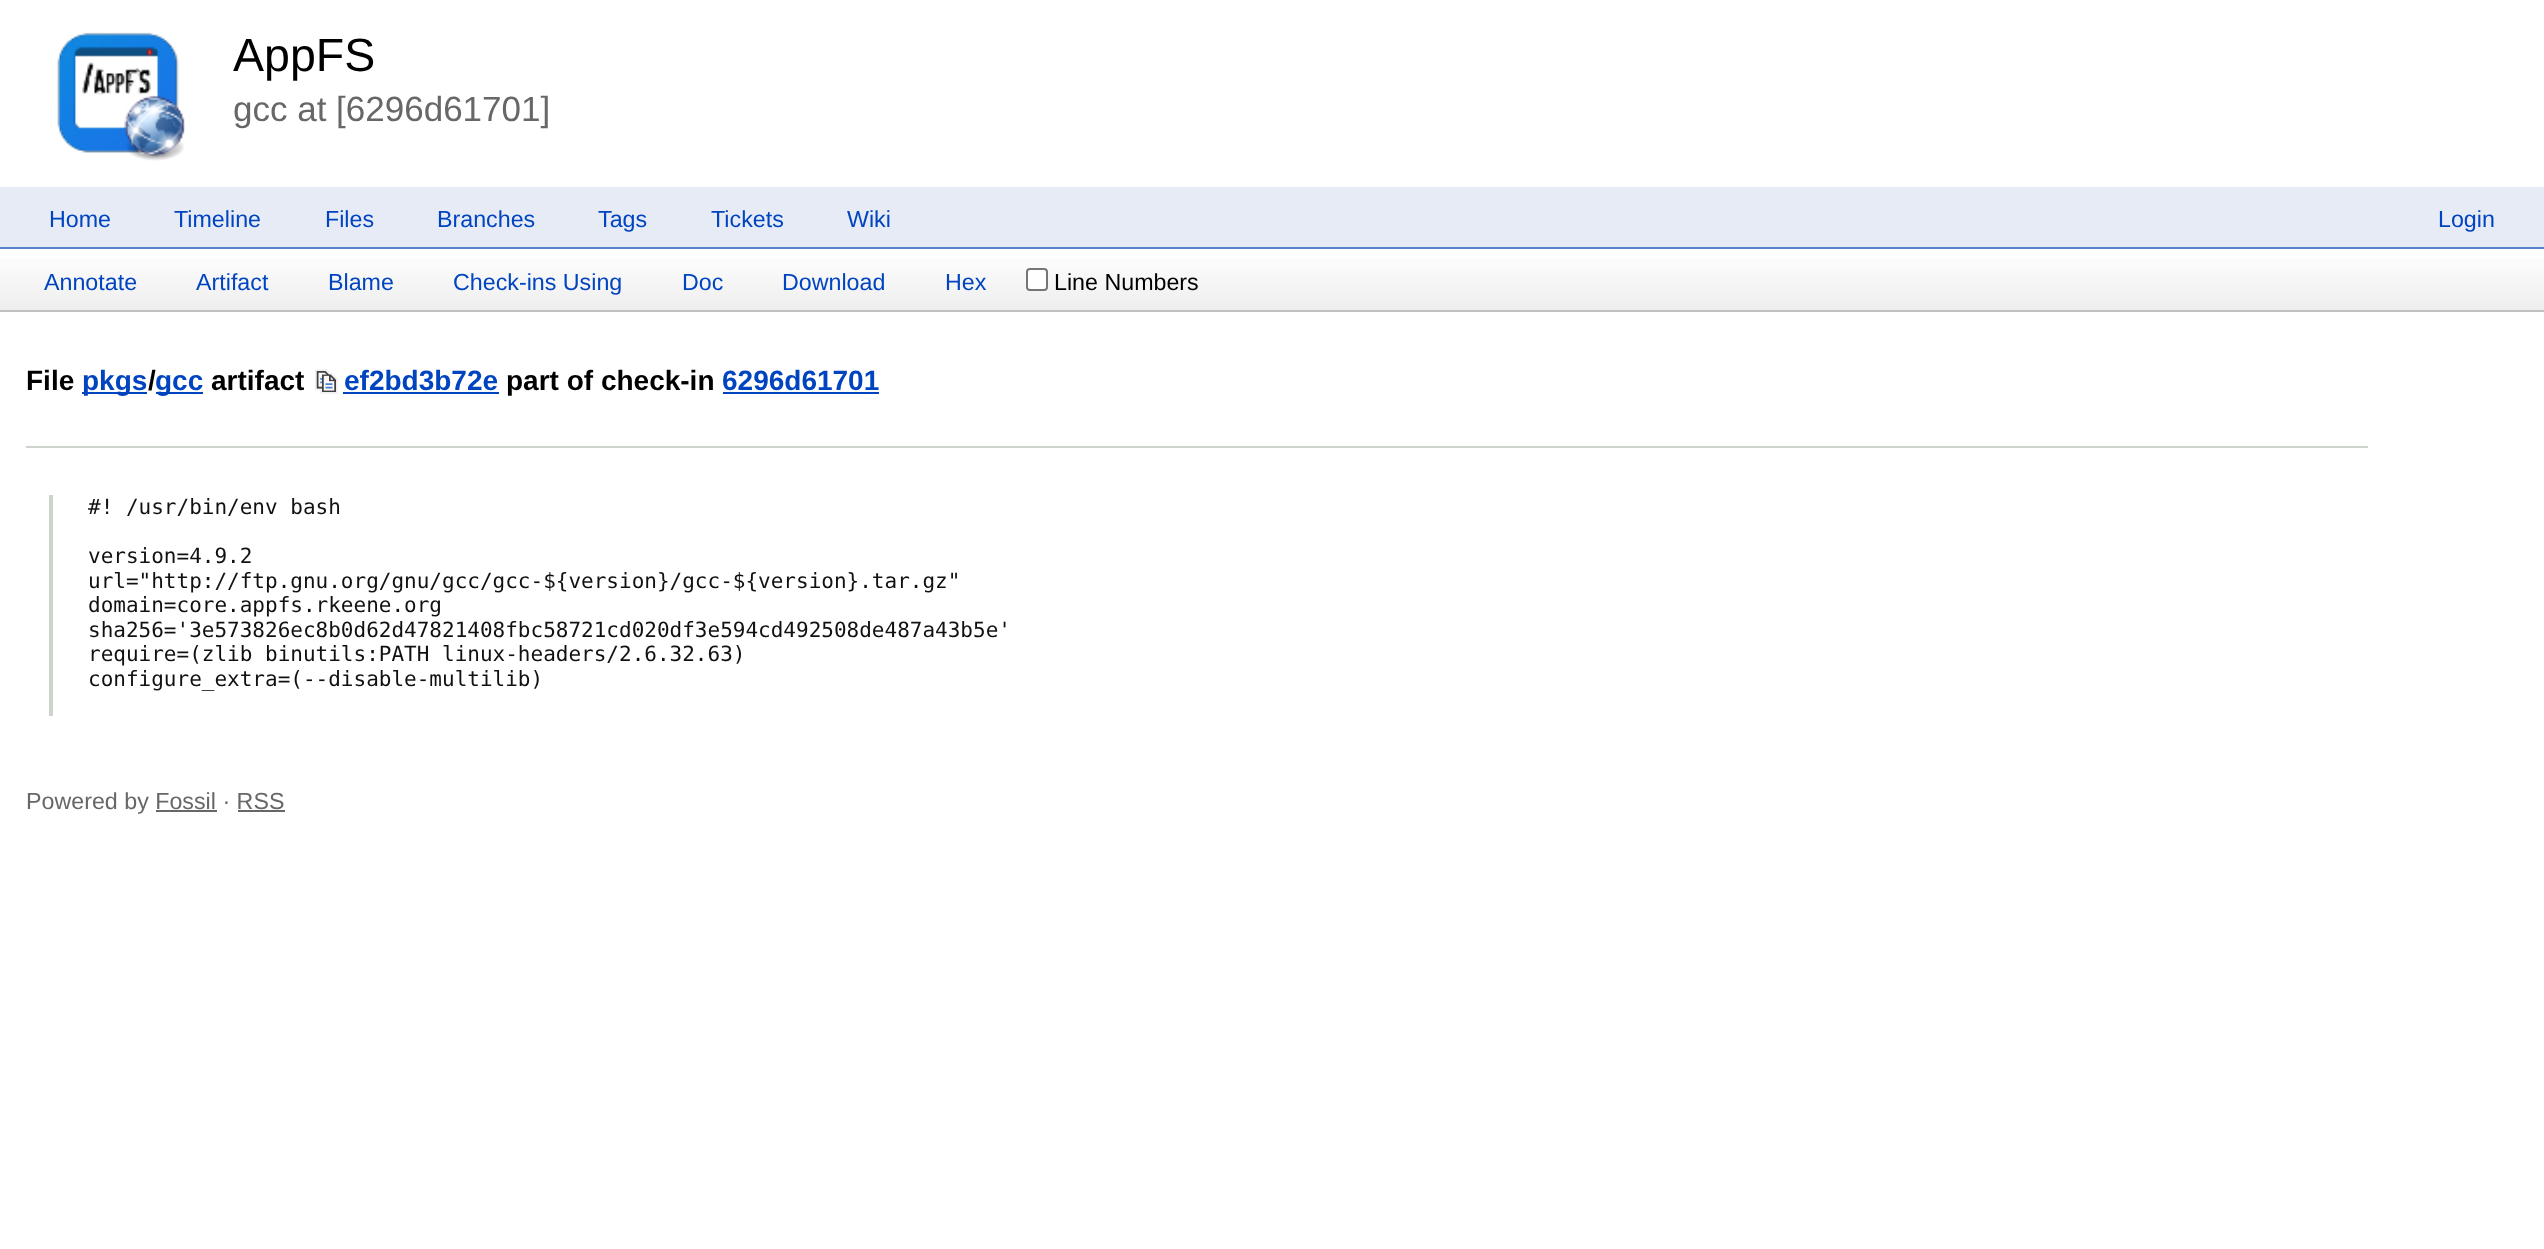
<svg xmlns="http://www.w3.org/2000/svg" xmlns:xlink="http://www.w3.org/1999/xlink" width="2544" height="1249" viewBox="0 0 2544 1249">
<style>
.cls-1{font:46.5px Liberation Sans;fill:#000000}
.cls-2{font:35px Liberation Sans;fill:#666866}
.cls-3{font:23.25px Liberation Sans;fill:#0044c0}
.cls-4{font:23.25px Liberation Sans;fill:#000000}
.cls-5{font:bold 28px Liberation Sans;fill:#000000}
.cls-6{font:bold 28px Liberation Sans;fill:#0044c0}
.cls-7{font:21px DejaVu Sans Mono;fill:#111111}
.cls-8{font:23.25px Liberation Sans;fill:#666866}
</style>
<defs>
<linearGradient id="g1" gradientUnits="userSpaceOnUse" x1="0" y1="310" x2="0" y2="249"><stop offset="0" stop-color="#eeeeee"/><stop offset="1" stop-color="#ffffff"/></linearGradient>
</defs>
<rect width="100%" height="100%" fill="#ffffff"/>
<image xlink:href="image0.png" x="57" y="32" width="128" height="129"/>
<rect fill="#e6ebf6" x="0" y="187" width="2544" height="60"/>
<rect fill="#5980cc" x="0" y="247" width="2544" height="2"/>
<rect fill="url(#g1)" x="0" y="258" width="2544" height="52"/>
<rect fill="#c0c0c0" x="0" y="310" width="2544" height="2"/>
<rect fill="#ffffff" stroke="#767676" stroke-width="2" x="1027" y="269" width="20" height="21" rx="3"/>
<rect fill="#0044c0" x="82" y="392" width="65" height="2"/>
<rect fill="#0044c0" x="156" y="392" width="47" height="2"/>
<image xlink:href="image1.png" x="315" y="369" width="23" height="25"/>
<rect fill="#0044c0" x="343" y="392" width="156" height="2"/>
<rect fill="#0044c0" x="723" y="392" width="156" height="2"/>
<rect fill="#ccd4cc" x="26" y="446" width="2342" height="2"/>
<rect fill="#ccd4cc" x="49" y="495" width="4" height="221"/>
<rect fill="#666866" x="156" y="810" width="61" height="2"/>
<rect fill="#666866" x="238" y="810" width="47" height="2"/>
<text class="cls-1" x="233" y="71">AppFS</text>
<text class="cls-2" x="233" y="121">gcc at [6296d61701]</text>
<text class="cls-3" x="49" y="227">Home</text>
<text class="cls-3" x="174" y="227">Timeline</text>
<text class="cls-3" x="325" y="227">Files</text>
<text class="cls-3" x="437" y="227">Branches</text>
<text class="cls-3" x="598" y="227">Tags</text>
<text class="cls-3" x="711" y="227">Tickets</text>
<text class="cls-3" x="847" y="227">Wiki</text>
<text class="cls-3" x="2438" y="227">Login</text>
<text class="cls-3" x="44" y="290">Annotate</text>
<text class="cls-3" x="196" y="290">Artifact</text>
<text class="cls-3" x="328" y="290">Blame</text>
<text class="cls-3" x="453" y="290">Check-ins Using</text>
<text class="cls-3" x="682" y="290">Doc</text>
<text class="cls-3" x="782" y="290">Download</text>
<text class="cls-3" x="945" y="290">Hex</text>
<text class="cls-4" x="1054" y="290">Line Numbers</text>
<text class="cls-5" x="26" y="390">File</text>
<text class="cls-6" x="82" y="390">pkgs</text>
<text class="cls-5" x="148" y="390">/</text>
<text class="cls-6" x="155" y="390">gcc</text>
<text class="cls-5" x="211" y="390">artifact</text>
<text class="cls-6" x="344" y="390">ef2bd3b72e</text>
<text class="cls-5" x="506" y="390">part of check-in</text>
<text class="cls-6" x="722" y="390">6296d61701</text>
<text class="cls-7" x="88" y="514">#! /usr/bin/env bash</text>
<text class="cls-7"><tspan x="88" y="563">version=4.9.2</tspan><tspan x="88" y="588">url="http://ftp.gnu.org/gnu/gcc/gcc-${version}/gcc-${version}.tar.gz"</tspan><tspan x="88" y="612">domain=core.appfs.rkeene.org</tspan><tspan x="88" y="637">sha256='3e573826ec8b0d62d47821408fbc58721cd020df3e594cd492508de487a43b5e'</tspan><tspan x="88" y="661">require=(zlib binutils:PATH linux-headers/2.6.32.63)</tspan><tspan x="88" y="686">configure_extra=(--disable-multilib)</tspan></text>
<text class="cls-8" x="26" y="809">Powered by Fossil · RSS</text>
</svg>
